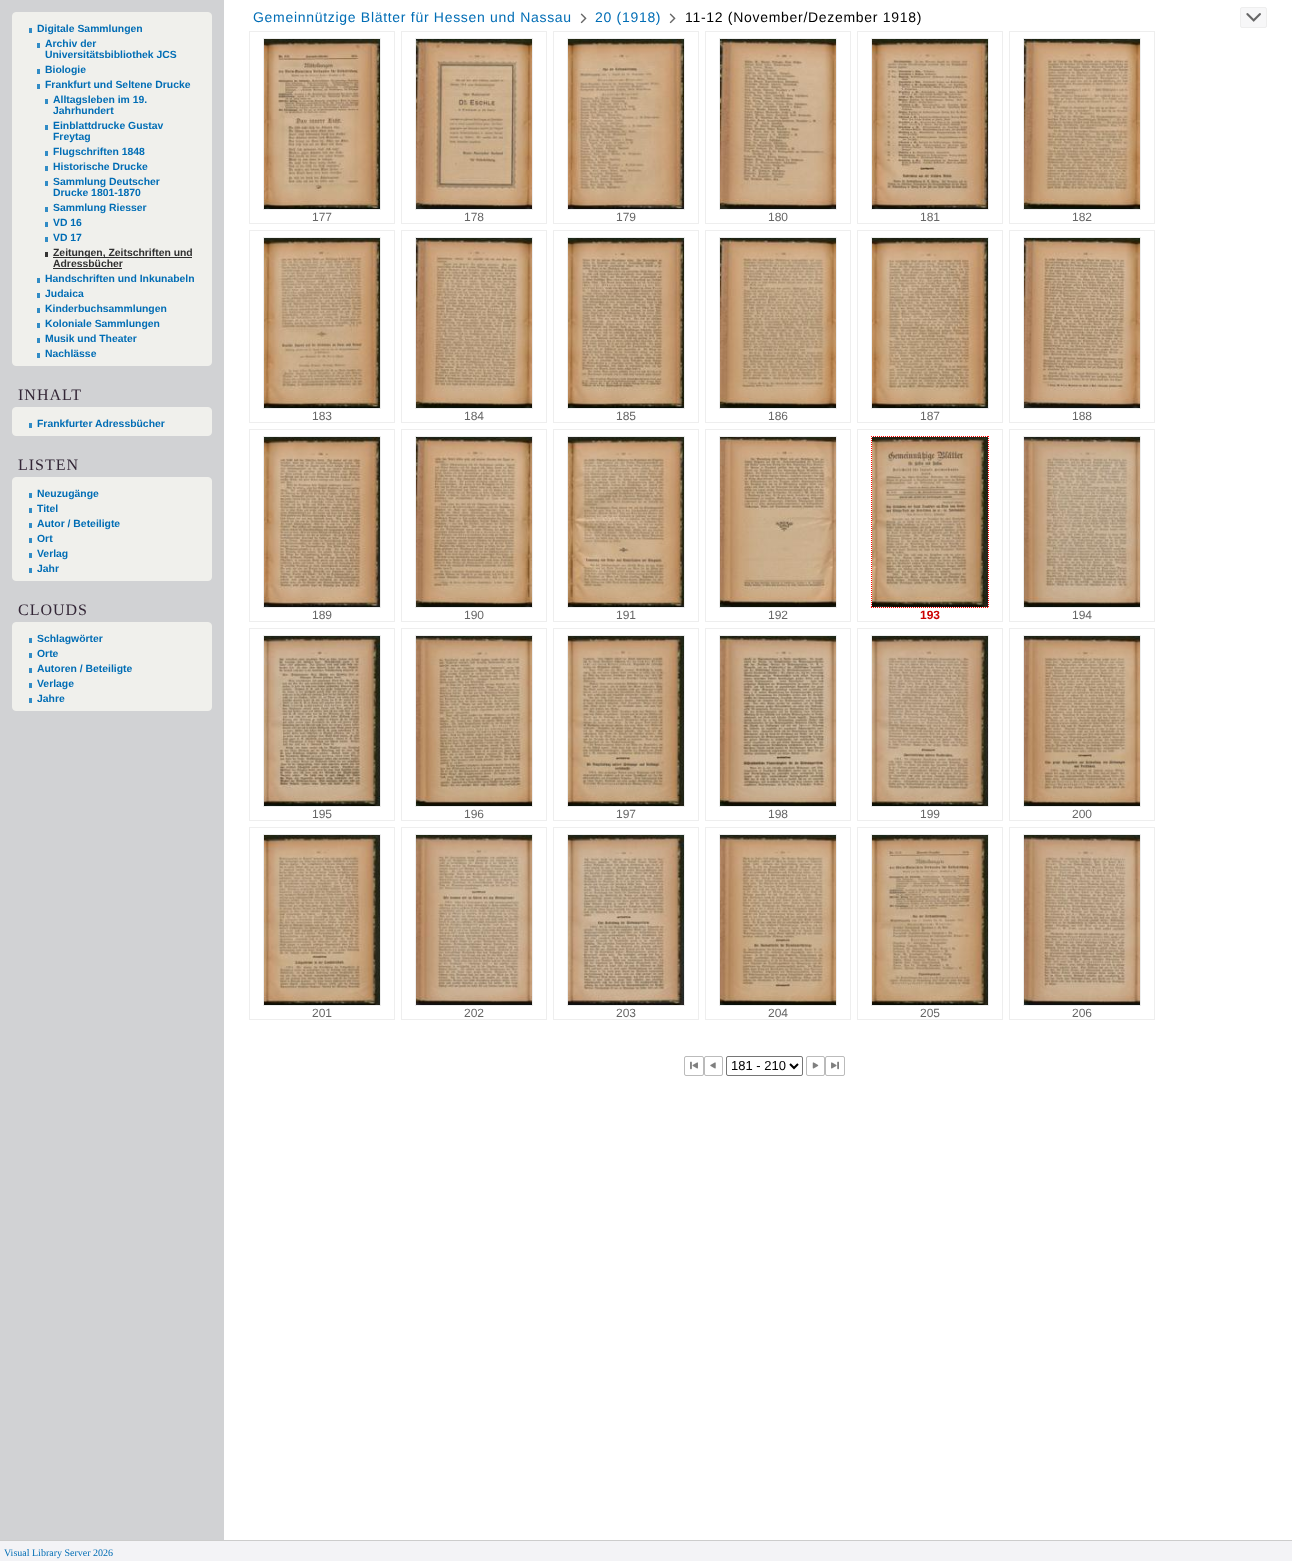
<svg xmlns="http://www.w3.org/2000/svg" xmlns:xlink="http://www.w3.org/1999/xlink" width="1292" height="1561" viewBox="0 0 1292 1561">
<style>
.cls-1{font:bold 10.4px Liberation Sans;fill:#006db5}
.cls-2{font:bold 10.4px Liberation Sans;fill:#303030}
.cls-3{font:16px Liberation Serif;letter-spacing:1px;fill:#332636}
.cls-4{font:14px Liberation Sans;letter-spacing:0.7px;fill:#006db5}
.cls-5{font:14px Liberation Sans;letter-spacing:0.7px;fill:#000000}
.cls-6{font:12px Liberation Sans;fill:#666666}
.cls-7{font:bold 12px Liberation Sans;fill:#cc0000}
.cls-8{font:13px Liberation Sans;fill:#000000}
.cls-9{font:10px Liberation Serif;fill:#006db5}
</style>
<rect width="100%" height="100%" fill="#d1d2d4"/>
<rect fill="#f0f0ec" stroke="#f0f0ec" x="12.5" y="12.5" width="199" height="353" rx="3.5"/>
<rect fill="#318cc6" x="29" y="28" width="3" height="5"/>
<rect fill="#318cc6" x="37" y="43" width="3" height="5"/>
<rect fill="#318cc6" x="37" y="69" width="3" height="5"/>
<rect fill="#318cc6" x="37" y="84" width="3" height="5"/>
<rect fill="#318cc6" x="45" y="99" width="3" height="5"/>
<rect fill="#318cc6" x="45" y="125" width="3" height="5"/>
<rect fill="#318cc6" x="45" y="151" width="3" height="5"/>
<rect fill="#318cc6" x="45" y="166" width="3" height="5"/>
<rect fill="#318cc6" x="45" y="181" width="3" height="5"/>
<rect fill="#318cc6" x="45" y="207" width="3" height="5"/>
<rect fill="#318cc6" x="45" y="222" width="3" height="5"/>
<rect fill="#318cc6" x="45" y="237" width="3" height="5"/>
<rect fill="#343434" x="45" y="252" width="3" height="5"/>
<rect fill="#303030" x="53" y="257" width="139" height="1"/>
<rect fill="#303030" x="53" y="268" width="69" height="1"/>
<rect fill="#318cc6" x="37" y="278" width="3" height="5"/>
<rect fill="#318cc6" x="37" y="293" width="3" height="5"/>
<rect fill="#318cc6" x="37" y="308" width="3" height="5"/>
<rect fill="#318cc6" x="37" y="323" width="3" height="5"/>
<rect fill="#318cc6" x="37" y="338" width="3" height="5"/>
<rect fill="#318cc6" x="37" y="353" width="3" height="5"/>
<rect fill="#f0f0ec" stroke="#f0f0ec" x="12.5" y="407.5" width="199" height="28" rx="3.5"/>
<rect fill="#318cc6" x="29" y="423" width="3" height="5"/>
<rect fill="#f0f0ec" stroke="#f0f0ec" x="12.5" y="477.5" width="199" height="103" rx="3.5"/>
<rect fill="#318cc6" x="29" y="493" width="3" height="5"/>
<rect fill="#318cc6" x="29" y="508" width="3" height="5"/>
<rect fill="#318cc6" x="29" y="523" width="3" height="5"/>
<rect fill="#318cc6" x="29" y="538" width="3" height="5"/>
<rect fill="#318cc6" x="29" y="553" width="3" height="5"/>
<rect fill="#318cc6" x="29" y="568" width="3" height="5"/>
<rect fill="#f0f0ec" stroke="#f0f0ec" x="12.5" y="622.5" width="199" height="88" rx="3.5"/>
<rect fill="#318cc6" x="29" y="638" width="3" height="5"/>
<rect fill="#318cc6" x="29" y="653" width="3" height="5"/>
<rect fill="#318cc6" x="29" y="668" width="3" height="5"/>
<rect fill="#318cc6" x="29" y="683" width="3" height="5"/>
<rect fill="#318cc6" x="29" y="698" width="3" height="5"/>
<rect fill="#ffffff" x="224" y="0" width="1068" height="1540"/>
<image xlink:href="image0.png" x="580" y="13" width="7" height="11"/>
<image xlink:href="image0.png" x="669" y="13" width="7" height="11"/>
<rect fill="#f7f7f8" stroke="#eeeeee" x="1240.5" y="7.5" width="26" height="20" rx="1.5"/>
<image xlink:href="image1.png" x="1246" y="13" width="15" height="9"/>
<rect fill="none" stroke="#eeeeee" x="249.5" y="31.5" width="145" height="192"/>
<rect fill="none" stroke="#eeeeee" x="263.5" y="38.5" width="117" height="171"/>
<image xlink:href="image2.png" x="264" y="39" width="116" height="170"/>
<rect fill="none" stroke="#eeeeee" x="401.5" y="31.5" width="145" height="192"/>
<rect fill="none" stroke="#eeeeee" x="415.5" y="38.5" width="117" height="171"/>
<image xlink:href="image3.png" x="416" y="39" width="116" height="170"/>
<rect fill="none" stroke="#eeeeee" x="553.5" y="31.5" width="145" height="192"/>
<rect fill="none" stroke="#eeeeee" x="567.5" y="38.5" width="117" height="171"/>
<image xlink:href="image4.png" x="568" y="39" width="116" height="170"/>
<rect fill="none" stroke="#eeeeee" x="705.5" y="31.5" width="145" height="192"/>
<rect fill="none" stroke="#eeeeee" x="719.5" y="38.5" width="117" height="171"/>
<image xlink:href="image5.png" x="720" y="39" width="116" height="170"/>
<rect fill="none" stroke="#eeeeee" x="857.5" y="31.5" width="145" height="192"/>
<rect fill="none" stroke="#eeeeee" x="871.5" y="38.5" width="117" height="171"/>
<image xlink:href="image6.png" x="872" y="39" width="116" height="170"/>
<rect fill="none" stroke="#eeeeee" x="1009.5" y="31.5" width="145" height="192"/>
<rect fill="none" stroke="#eeeeee" x="1023.5" y="38.5" width="117" height="171"/>
<image xlink:href="image7.png" x="1024" y="39" width="116" height="170"/>
<rect fill="none" stroke="#eeeeee" x="249.5" y="230.5" width="145" height="192"/>
<rect fill="none" stroke="#eeeeee" x="263.5" y="237.5" width="117" height="171"/>
<image xlink:href="image8.png" x="264" y="238" width="116" height="170"/>
<rect fill="none" stroke="#eeeeee" x="401.5" y="230.5" width="145" height="192"/>
<rect fill="none" stroke="#eeeeee" x="415.5" y="237.5" width="117" height="171"/>
<image xlink:href="image9.png" x="416" y="238" width="116" height="170"/>
<rect fill="none" stroke="#eeeeee" x="553.5" y="230.5" width="145" height="192"/>
<rect fill="none" stroke="#eeeeee" x="567.5" y="237.5" width="117" height="171"/>
<image xlink:href="image10.png" x="568" y="238" width="116" height="170"/>
<rect fill="none" stroke="#eeeeee" x="705.5" y="230.5" width="145" height="192"/>
<rect fill="none" stroke="#eeeeee" x="719.5" y="237.5" width="117" height="171"/>
<image xlink:href="image11.png" x="720" y="238" width="116" height="170"/>
<rect fill="none" stroke="#eeeeee" x="857.5" y="230.5" width="145" height="192"/>
<rect fill="none" stroke="#eeeeee" x="871.5" y="237.5" width="117" height="171"/>
<image xlink:href="image12.png" x="872" y="238" width="116" height="170"/>
<rect fill="none" stroke="#eeeeee" x="1009.5" y="230.5" width="145" height="192"/>
<rect fill="none" stroke="#eeeeee" x="1023.5" y="237.5" width="117" height="171"/>
<image xlink:href="image13.png" x="1024" y="238" width="116" height="170"/>
<rect fill="none" stroke="#eeeeee" x="249.5" y="429.5" width="145" height="192"/>
<rect fill="none" stroke="#eeeeee" x="263.5" y="436.5" width="117" height="171"/>
<image xlink:href="image14.png" x="264" y="437" width="116" height="170"/>
<rect fill="none" stroke="#eeeeee" x="401.5" y="429.5" width="145" height="192"/>
<rect fill="none" stroke="#eeeeee" x="415.5" y="436.5" width="117" height="171"/>
<image xlink:href="image15.png" x="416" y="437" width="116" height="170"/>
<rect fill="none" stroke="#eeeeee" x="553.5" y="429.5" width="145" height="192"/>
<rect fill="none" stroke="#eeeeee" x="567.5" y="436.5" width="117" height="171"/>
<image xlink:href="image16.png" x="568" y="437" width="116" height="170"/>
<rect fill="none" stroke="#eeeeee" x="705.5" y="429.5" width="145" height="192"/>
<rect fill="none" stroke="#eeeeee" x="719.5" y="436.5" width="117" height="171"/>
<image xlink:href="image17.png" x="720" y="437" width="116" height="170"/>
<rect fill="none" stroke="#eeeeee" x="857.5" y="429.5" width="145" height="192"/>
<path fill="none" stroke="#ff0000" stroke-dasharray="1 1" d="M871 436.5H989"/>
<path fill="none" stroke="#ff0000" stroke-dasharray="1 1" d="M871.5 436V608"/>
<image xlink:href="image18.png" x="872" y="437" width="116" height="170"/>
<path fill="none" stroke="#ff0000" stroke-dasharray="1 1" d="M988.5 436V608"/>
<path fill="none" stroke="#ff0000" stroke-dasharray="1 1" d="M871 607.5H989"/>
<rect fill="none" stroke="#eeeeee" x="1009.5" y="429.5" width="145" height="192"/>
<rect fill="none" stroke="#eeeeee" x="1023.5" y="436.5" width="117" height="171"/>
<image xlink:href="image19.png" x="1024" y="437" width="116" height="170"/>
<rect fill="none" stroke="#eeeeee" x="249.5" y="628.5" width="145" height="192"/>
<rect fill="none" stroke="#eeeeee" x="263.5" y="635.5" width="117" height="171"/>
<image xlink:href="image20.png" x="264" y="636" width="116" height="170"/>
<rect fill="none" stroke="#eeeeee" x="401.5" y="628.5" width="145" height="192"/>
<rect fill="none" stroke="#eeeeee" x="415.5" y="635.5" width="117" height="171"/>
<image xlink:href="image21.png" x="416" y="636" width="116" height="170"/>
<rect fill="none" stroke="#eeeeee" x="553.5" y="628.5" width="145" height="192"/>
<rect fill="none" stroke="#eeeeee" x="567.5" y="635.5" width="117" height="171"/>
<image xlink:href="image22.png" x="568" y="636" width="116" height="170"/>
<rect fill="none" stroke="#eeeeee" x="705.5" y="628.5" width="145" height="192"/>
<rect fill="none" stroke="#eeeeee" x="719.5" y="635.5" width="117" height="171"/>
<image xlink:href="image23.png" x="720" y="636" width="116" height="170"/>
<rect fill="none" stroke="#eeeeee" x="857.5" y="628.5" width="145" height="192"/>
<rect fill="none" stroke="#eeeeee" x="871.5" y="635.5" width="117" height="171"/>
<image xlink:href="image24.png" x="872" y="636" width="116" height="170"/>
<rect fill="none" stroke="#eeeeee" x="1009.5" y="628.5" width="145" height="192"/>
<rect fill="none" stroke="#eeeeee" x="1023.5" y="635.5" width="117" height="171"/>
<image xlink:href="image25.png" x="1024" y="636" width="116" height="170"/>
<rect fill="none" stroke="#eeeeee" x="249.5" y="827.5" width="145" height="192"/>
<rect fill="none" stroke="#eeeeee" x="263.5" y="834.5" width="117" height="171"/>
<image xlink:href="image26.png" x="264" y="835" width="116" height="170"/>
<rect fill="none" stroke="#eeeeee" x="401.5" y="827.5" width="145" height="192"/>
<rect fill="none" stroke="#eeeeee" x="415.5" y="834.5" width="117" height="171"/>
<image xlink:href="image27.png" x="416" y="835" width="116" height="170"/>
<rect fill="none" stroke="#eeeeee" x="553.5" y="827.5" width="145" height="192"/>
<rect fill="none" stroke="#eeeeee" x="567.5" y="834.5" width="117" height="171"/>
<image xlink:href="image28.png" x="568" y="835" width="116" height="170"/>
<rect fill="none" stroke="#eeeeee" x="705.5" y="827.5" width="145" height="192"/>
<rect fill="none" stroke="#eeeeee" x="719.5" y="834.5" width="117" height="171"/>
<image xlink:href="image29.png" x="720" y="835" width="116" height="170"/>
<rect fill="none" stroke="#eeeeee" x="857.5" y="827.5" width="145" height="192"/>
<rect fill="none" stroke="#eeeeee" x="871.5" y="834.5" width="117" height="171"/>
<image xlink:href="image30.png" x="872" y="835" width="116" height="170"/>
<rect fill="none" stroke="#eeeeee" x="1009.5" y="827.5" width="145" height="192"/>
<rect fill="none" stroke="#eeeeee" x="1023.5" y="834.5" width="117" height="171"/>
<image xlink:href="image31.png" x="1024" y="835" width="116" height="170"/>
<rect fill="none" stroke="#bbbbbb" x="684.5" y="1056.5" width="19" height="19" rx="1.5"/>
<image xlink:href="image32.png" x="690" y="1061" width="8" height="9"/>
<rect fill="none" stroke="#bbbbbb" x="704.5" y="1056.5" width="18" height="19" rx="1.5"/>
<image xlink:href="image33.png" x="710" y="1062" width="6" height="7"/>
<rect fill="none" stroke="#767676" x="726.5" y="1056.5" width="76" height="19" rx="1.5"/>
<path fill="none" stroke="#000000" stroke-width="2" d="M790 1064L794 1068L798 1064"/>
<rect fill="none" stroke="#bbbbbb" x="806.5" y="1056.5" width="18" height="19" rx="1.5"/>
<image xlink:href="image34.png" x="812" y="1062" width="7" height="7"/>
<rect fill="none" stroke="#bbbbbb" x="825.5" y="1056.5" width="19" height="19" rx="1.5"/>
<image xlink:href="image35.png" x="831" y="1061" width="8" height="9"/>
<rect fill="#f3f3f6" x="0" y="1541" width="1292" height="20"/>
<rect fill="#cccccc" x="0" y="1540" width="1292" height="1"/>
<text class="cls-1" x="37" y="32">Digitale Sammlungen</text>
<text class="cls-1"><tspan x="45" y="47">Archiv der</tspan><tspan x="45" y="58">Universitätsbibliothek JCS</tspan><tspan x="45" y="73">Biologie</tspan><tspan x="45" y="88">Frankfurt und Seltene Drucke</tspan></text>
<text class="cls-1"><tspan x="53" y="103">Alltagsleben im 19.</tspan><tspan x="53" y="114">Jahrhundert</tspan><tspan x="53" y="129">Einblattdrucke Gustav</tspan><tspan x="53" y="140">Freytag</tspan><tspan x="53" y="155">Flugschriften 1848</tspan><tspan x="53" y="170">Historische Drucke</tspan><tspan x="53" y="185">Sammlung Deutscher</tspan><tspan x="53" y="196">Drucke 1801-1870</tspan><tspan x="53" y="211">Sammlung Riesser</tspan><tspan x="53" y="226">VD 16</tspan><tspan x="53" y="241">VD 17</tspan></text>
<text class="cls-2"><tspan x="53" y="256">Zeitungen, Zeitschriften und</tspan><tspan x="53" y="267">Adressbücher</tspan></text>
<text class="cls-1"><tspan x="45" y="282">Handschriften und Inkunabeln</tspan><tspan x="45" y="297">Judaica</tspan><tspan x="45" y="312">Kinderbuchsammlungen</tspan><tspan x="45" y="327">Koloniale Sammlungen</tspan><tspan x="45" y="342">Musik und Theater</tspan><tspan x="45" y="357">Nachlässe</tspan></text>
<text class="cls-3" x="18" y="400">INHALT</text>
<text class="cls-1" x="37" y="427">Frankfurter Adressbücher</text>
<text class="cls-3" x="18" y="470">LISTEN</text>
<text class="cls-1"><tspan x="37" y="497">Neuzugänge</tspan><tspan x="37" y="512">Titel</tspan><tspan x="37" y="527">Autor / Beteiligte</tspan><tspan x="37" y="542">Ort</tspan><tspan x="37" y="557">Verlag</tspan><tspan x="37" y="572">Jahr</tspan></text>
<text class="cls-3" x="18" y="615">CLOUDS</text>
<text class="cls-1"><tspan x="37" y="642">Schlagwörter</tspan><tspan x="37" y="657">Orte</tspan><tspan x="37" y="672">Autoren / Beteiligte</tspan><tspan x="37" y="687">Verlage</tspan><tspan x="37" y="702">Jahre</tspan></text>
<text class="cls-4" x="253" y="22">Gemeinnützige Blätter für Hessen und Nassau</text>
<text class="cls-4" x="595" y="22">20 (1918)</text>
<text class="cls-5" x="685" y="22">11-12 (November/Dezember 1918)</text>
<text class="cls-6" x="312" y="221">177</text>
<text class="cls-6" x="464" y="221">178</text>
<text class="cls-6" x="616" y="221">179</text>
<text class="cls-6" x="768" y="221">180</text>
<text class="cls-6" x="920" y="221">181</text>
<text class="cls-6" x="1072" y="221">182</text>
<text class="cls-6" x="312" y="420">183</text>
<text class="cls-6" x="464" y="420">184</text>
<text class="cls-6" x="616" y="420">185</text>
<text class="cls-6" x="768" y="420">186</text>
<text class="cls-6" x="920" y="420">187</text>
<text class="cls-6" x="1072" y="420">188</text>
<text class="cls-6" x="312" y="619">189</text>
<text class="cls-6" x="464" y="619">190</text>
<text class="cls-6" x="616" y="619">191</text>
<text class="cls-6" x="768" y="619">192</text>
<text class="cls-7" x="920" y="619">193</text>
<text class="cls-6" x="1072" y="619">194</text>
<text class="cls-6" x="312" y="818">195</text>
<text class="cls-6" x="464" y="818">196</text>
<text class="cls-6" x="616" y="818">197</text>
<text class="cls-6" x="768" y="818">198</text>
<text class="cls-6" x="920" y="818">199</text>
<text class="cls-6" x="1072" y="818">200</text>
<text class="cls-6" x="312" y="1017">201</text>
<text class="cls-6" x="464" y="1017">202</text>
<text class="cls-6" x="616" y="1017">203</text>
<text class="cls-6" x="768" y="1017">204</text>
<text class="cls-6" x="920" y="1017">205</text>
<text class="cls-6" x="1072" y="1017">206</text>
<text class="cls-8" x="731" y="1070">181 - 210</text>
<text class="cls-9" x="4" y="1556">Visual Library Server 2026</text>
</svg>
